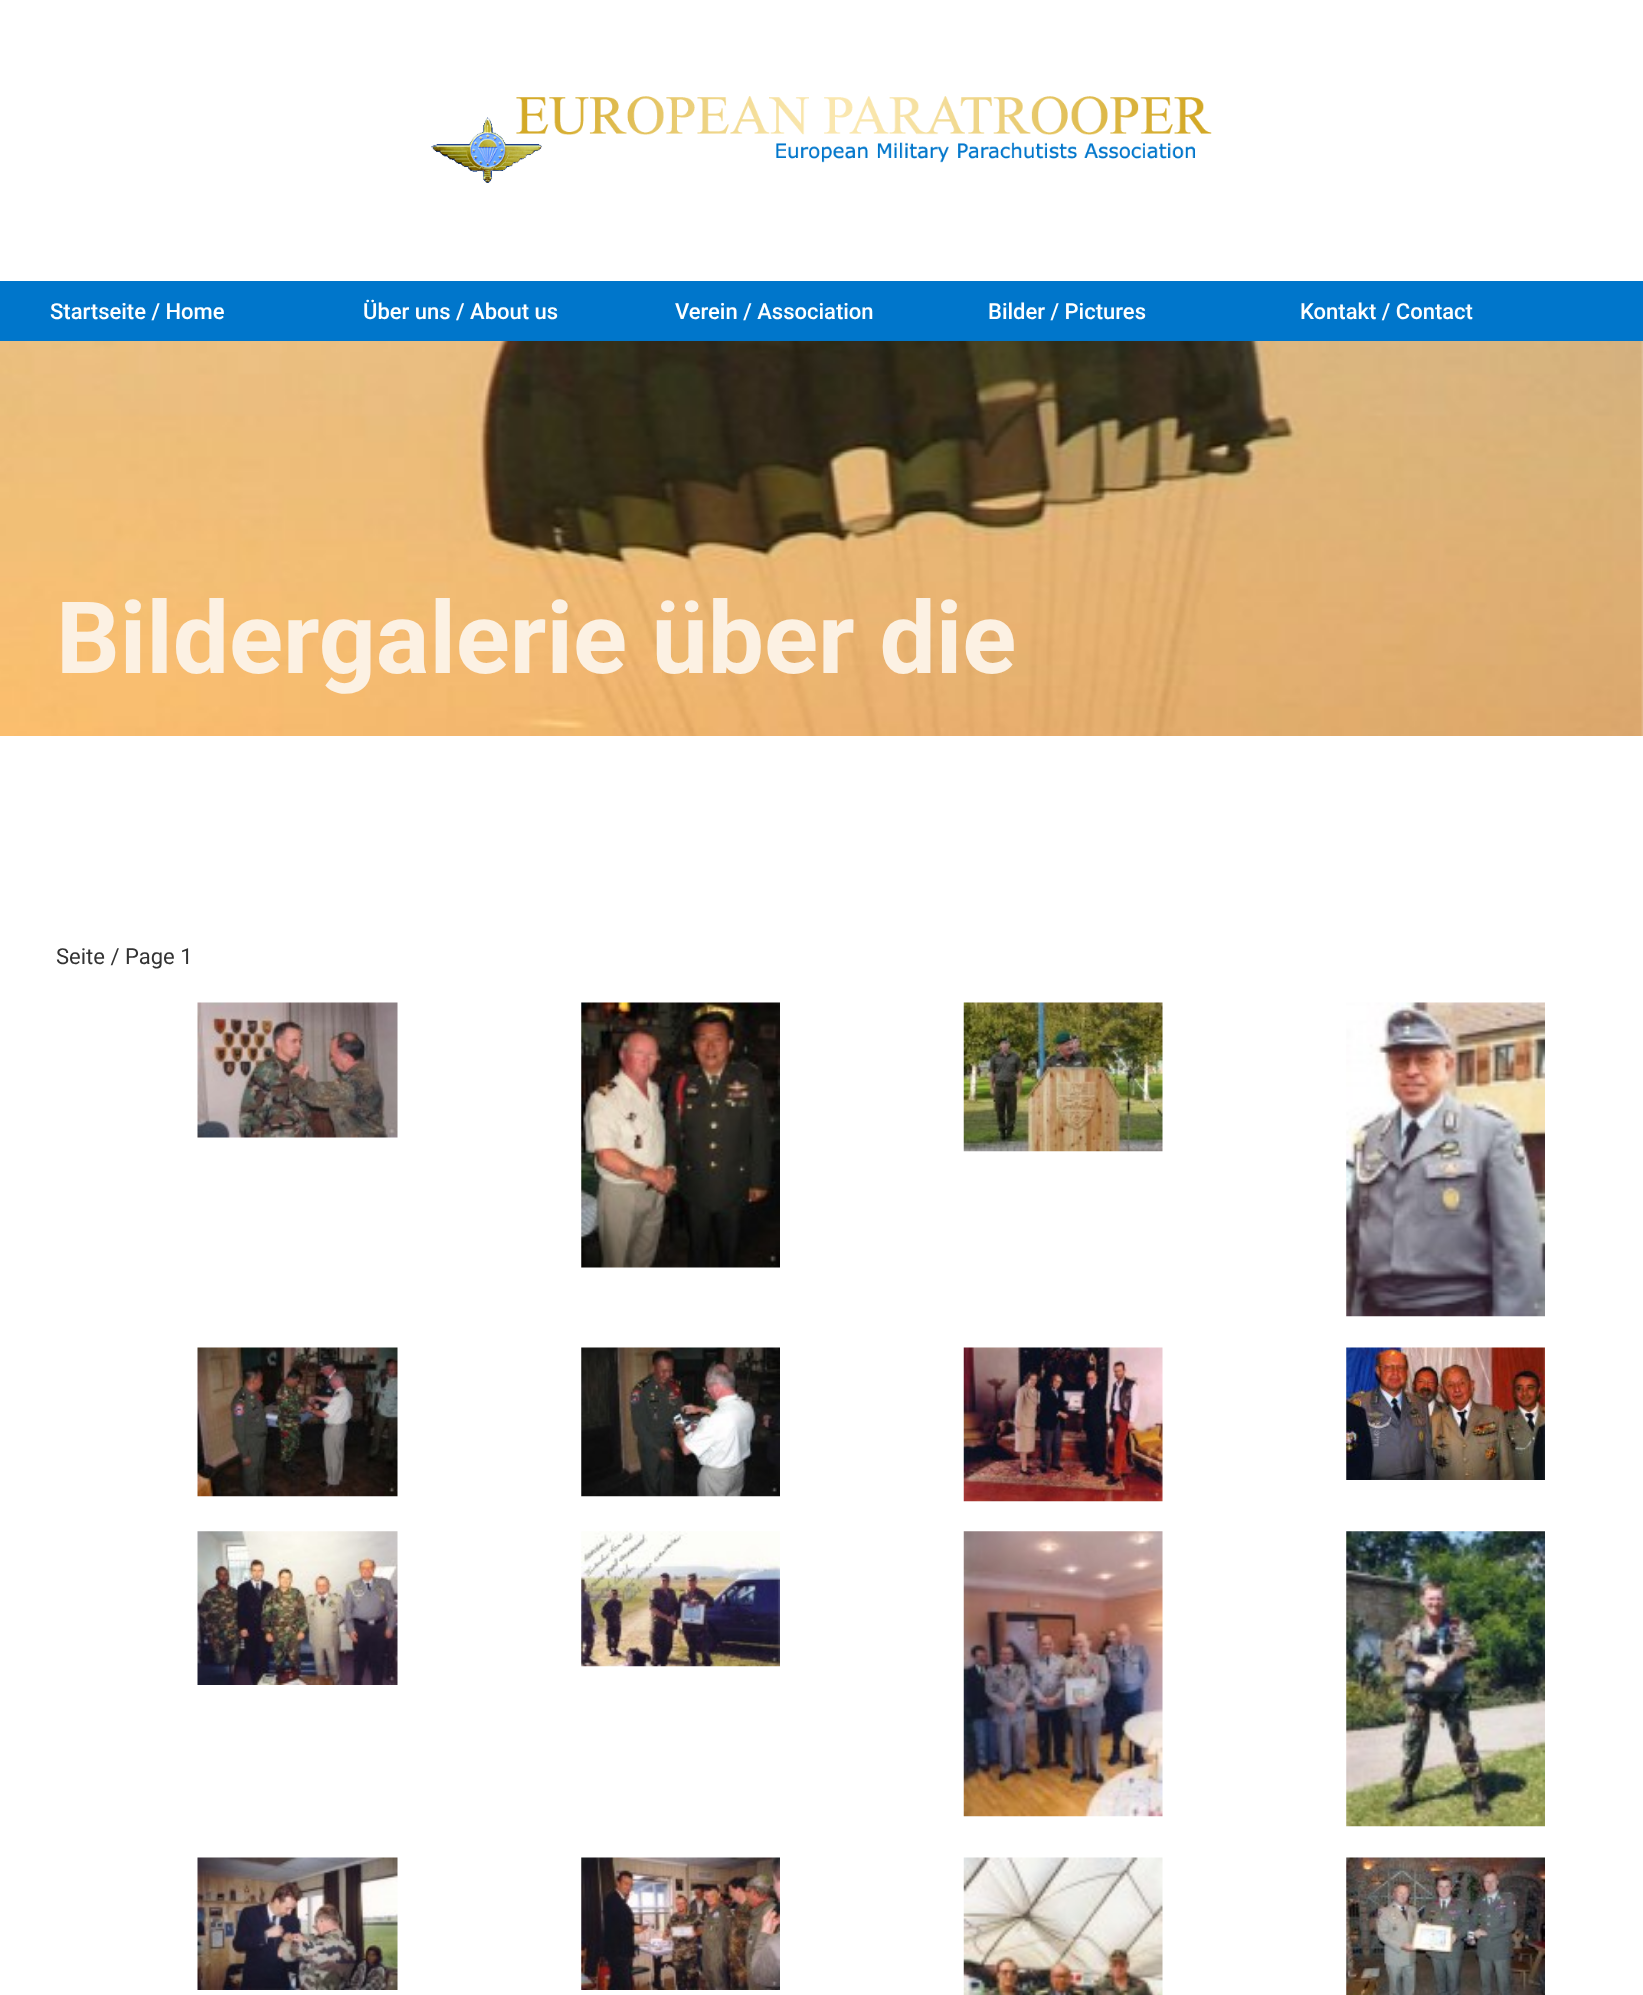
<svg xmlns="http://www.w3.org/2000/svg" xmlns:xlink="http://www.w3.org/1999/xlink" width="1643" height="1995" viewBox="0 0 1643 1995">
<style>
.cls-1{font:500 22px Roboto;fill:#ffffff}
.cls-2{font:bold 100px Roboto;fill:#fcf1e3}
.cls-3{font:22px Roboto;fill:#333333}
</style>
<rect width="100%" height="100%" fill="#ffffff"/>
<image xlink:href="image0.png" x="431" y="96" width="781" height="87"/>
<rect fill="#0076cb" x="0" y="281" width="1643" height="60"/>
<image xlink:href="image1.png" x="197" y="1002" width="201" height="136"/>
<image xlink:href="image2.png" x="581" y="1002" width="199" height="266"/>
<image xlink:href="image3.png" x="963" y="1002" width="200" height="150"/>
<image xlink:href="image4.png" x="1346" y="1002" width="199" height="315"/>
<image xlink:href="image5.png" x="197" y="1347" width="201" height="150"/>
<image xlink:href="image6.png" x="581" y="1347" width="199" height="150"/>
<image xlink:href="image7.png" x="963" y="1347" width="200" height="155"/>
<image xlink:href="image8.png" x="1346" y="1347" width="199" height="133"/>
<image xlink:href="image9.png" x="197" y="1531" width="201" height="154"/>
<image xlink:href="image10.png" x="581" y="1531" width="199" height="136"/>
<image xlink:href="image11.png" x="963" y="1531" width="200" height="286"/>
<image xlink:href="image12.png" x="1346" y="1531" width="199" height="296"/>
<image xlink:href="image13.png" x="197" y="1857" width="201" height="133"/>
<image xlink:href="image14.png" x="581" y="1857" width="199" height="133"/>
<image xlink:href="image15.png" x="963" y="1857" width="200" height="138"/>
<image xlink:href="image16.png" x="1346" y="1857" width="199" height="138"/>
<image xlink:href="image17.png" x="0" y="341" width="1643" height="395"/>
<text class="cls-1" x="50" y="319">Startseite / Home</text>
<text class="cls-1" x="363" y="319">Über uns / About us</text>
<text class="cls-1" x="675" y="319">Verein / Association</text>
<text class="cls-1" x="988" y="319">Bilder / Pictures</text>
<text class="cls-1" x="1300" y="319">Kontakt / Contact</text>
<text class="cls-2" x="56" y="673">Bildergalerie über die</text>
<text class="cls-3" x="56" y="964">Seite / Page 1</text>
</svg>
